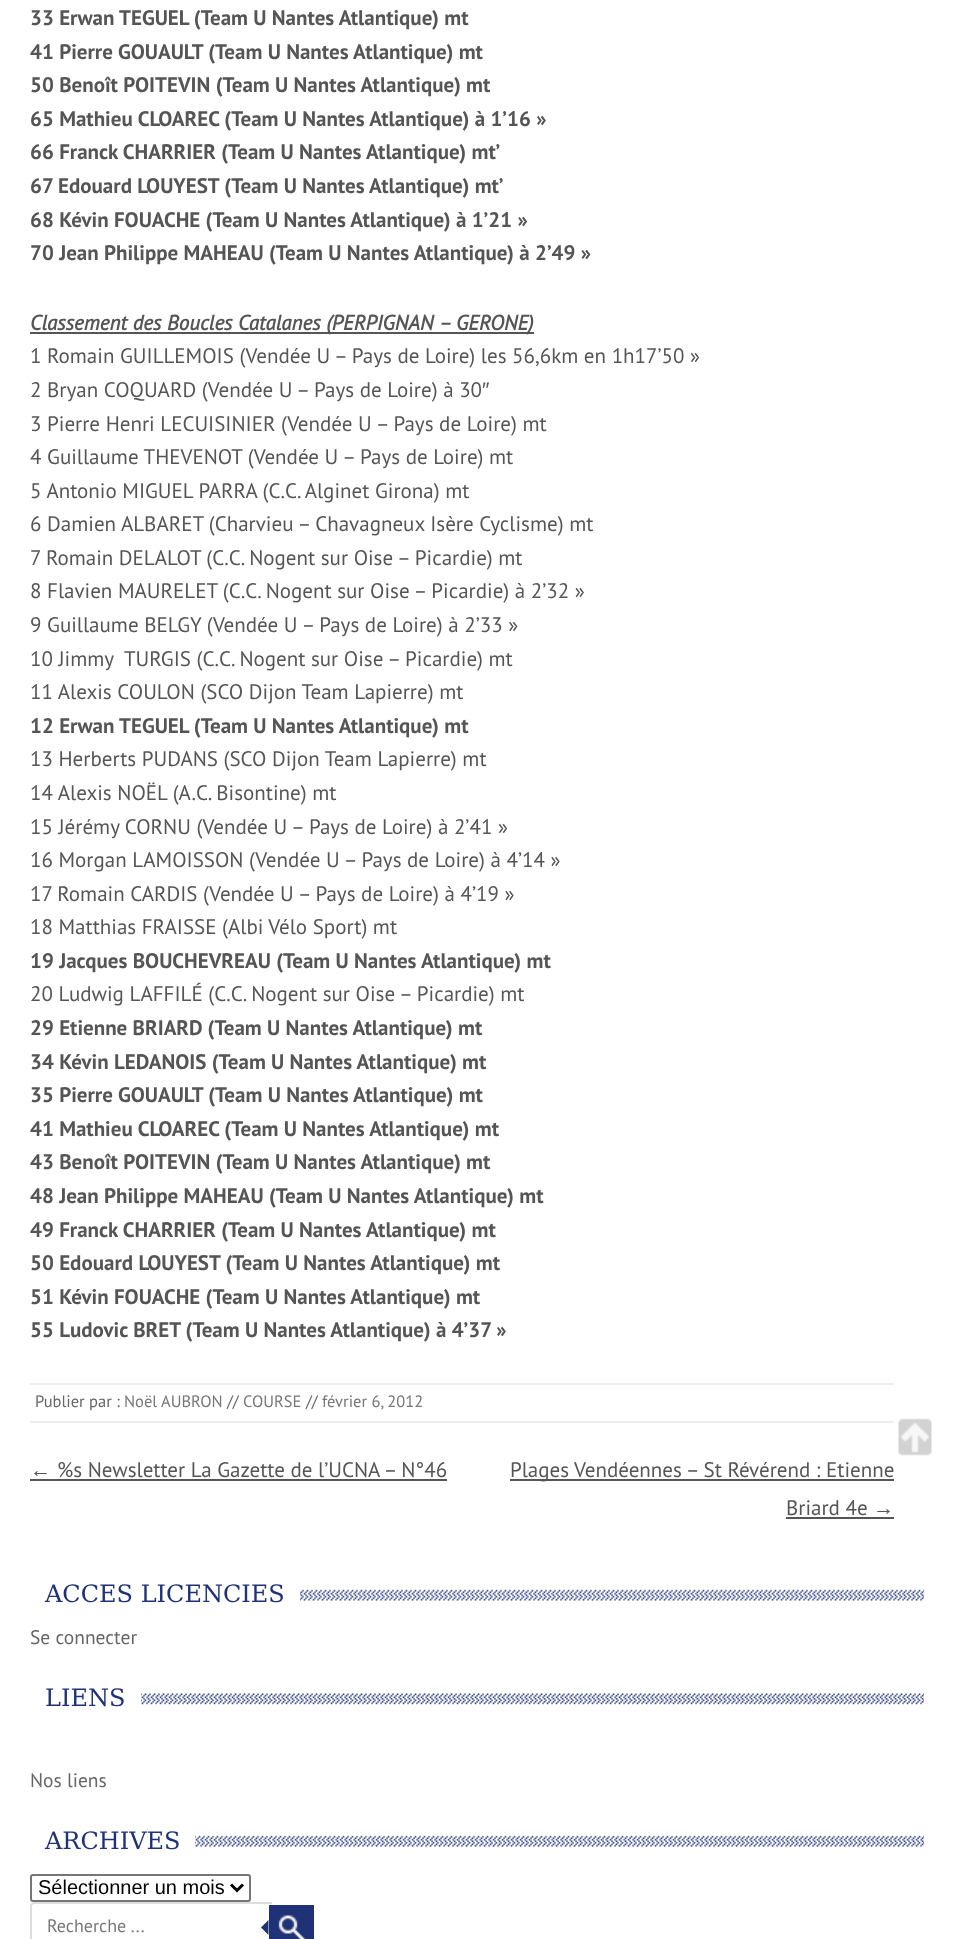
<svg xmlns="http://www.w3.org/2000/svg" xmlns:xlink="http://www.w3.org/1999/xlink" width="953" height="1939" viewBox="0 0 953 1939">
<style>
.cls-1{font:bold 21px PT Sans;fill:#555555}
.cls-2{font:italic bold 21px PT Sans;fill:#555555}
.cls-3{font:21px PT Sans;fill:#555555}
.cls-4{font:21px Liberation Sans;fill:#555555}
.cls-5{font:16.5px PT Sans;fill:#666666}
.cls-6{font:16.5px PT Sans;fill:#777777}
.cls-7{font:24px DejaVu Serif;fill:#1f3277}
.cls-8{font:19.5px PT Sans;fill:#666666}
.cls-9{font:20px Liberation Sans;fill:#000000}
.cls-10{font:18px PT Sans;fill:#777777}
</style>
<rect width="100%" height="100%" fill="#ffffff"/>
<rect fill="#555555" x="30" y="332" width="504" height="2"/>
<rect fill="#eeeeee" x="30" y="1383" width="864" height="2"/>
<rect fill="#eeeeee" x="30" y="1421" width="864" height="2"/>
<rect fill="#555555" x="30" y="1479" width="417" height="2"/>
<rect fill="#555555" x="510" y="1479" width="384" height="2"/>
<rect fill="#555555" x="786" y="1517" width="108" height="2"/>
<image xlink:href="image0.png" x="300" y="1589" width="624" height="12"/>
<image xlink:href="image1.png" x="141" y="1693" width="783" height="12"/>
<image xlink:href="image2.png" x="195" y="1835" width="729" height="12"/>
<rect fill="none" stroke="#767676" stroke-width="2" x="31" y="1875" width="219" height="26" rx="2"/>
<path fill="none" stroke="#000000" stroke-width="3" d="M231 1884.5L237 1890.5L243 1884.5"/>
<path fill="#dddddd" fill-rule="evenodd" d="M34 1902H272V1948H34C32 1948 30 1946 30 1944V1906C30 1904 32 1902 34 1902ZM34 1904H272V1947H34C33 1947 32 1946 32 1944V1906C32 1905 33 1904 34 1904Z"/>
<rect fill="#1f3277" x="269" y="1905" width="45" height="34"/>
<image xlink:href="image3.png" x="278" y="1915" width="27" height="24"/>
<path fill="#1f3277" d="M268.5 1920V1935L261 1927.5Z"/>
<image xlink:href="image4.png" x="898" y="1418" width="34" height="38"/>
<text class="cls-1"><tspan x="30" y="25">33 Erwan TEGUEL (Team U Nantes Atlantique) mt</tspan><tspan x="30" y="59">41 Pierre GOUAULT (Team U Nantes Atlantique) mt</tspan><tspan x="30" y="92">50 Benoît POITEVIN (Team U Nantes Atlantique) mt</tspan><tspan x="30" y="126">65 Mathieu CLOAREC (Team U Nantes Atlantique) à 1’16 »</tspan><tspan x="30" y="159">66 Franck CHARRIER (Team U Nantes Atlantique) mt’</tspan><tspan x="30" y="193">67 Edouard LOUYEST (Team U Nantes Atlantique) mt’</tspan><tspan x="30" y="227">68 Kévin FOUACHE (Team U Nantes Atlantique) à 1’21 »</tspan><tspan x="30" y="260">70 Jean Philippe MAHEAU (Team U Nantes Atlantique) à 2’49 »</tspan></text>
<text class="cls-2" x="30" y="330">Classement des Boucles Catalanes (PERPIGNAN – GERONE)</text>
<text class="cls-3"><tspan x="30" y="363">1 Romain GUILLEMOIS (Vendée U – Pays de Loire) les 56,6km en 1h17’50 »</tspan><tspan x="30" y="397">2 Bryan COQUARD (Vendée U – Pays de Loire) à 30</tspan></text>
<text class="cls-4" x="482" y="397">″</text>
<text class="cls-3" xml:space="preserve"><tspan x="30" y="431">3 Pierre Henri LECUISINIER (Vendée U – Pays de Loire) mt</tspan><tspan x="30" y="464">4 Guillaume THEVENOT (Vendée U – Pays de Loire) mt</tspan><tspan x="30" y="498">5 Antonio MIGUEL PARRA (C.C. Alginet Girona) mt</tspan><tspan x="30" y="531">6 Damien ALBARET (Charvieu – Chavagneux Isère Cyclisme) mt</tspan><tspan x="30" y="565">7 Romain DELALOT (C.C. Nogent sur Oise – Picardie) mt</tspan><tspan x="30" y="598">8 Flavien MAURELET (C.C. Nogent sur Oise – Picardie) à 2’32 »</tspan><tspan x="30" y="632">9 Guillaume BELGY (Vendée U – Pays de Loire) à 2’33 »</tspan><tspan x="30" y="666">10 Jimmy  TURGIS (C.C. Nogent sur Oise – Picardie) mt</tspan><tspan x="30" y="699">11 Alexis COULON (SCO Dijon Team Lapierre) mt</tspan></text>
<text class="cls-1" x="30" y="733">12 Erwan TEGUEL (Team U Nantes Atlantique) mt</text>
<text class="cls-3"><tspan x="30" y="766">13 Herberts PUDANS (SCO Dijon Team Lapierre) mt</tspan><tspan x="30" y="800">14 Alexis NOËL (A.C. Bisontine) mt</tspan><tspan x="30" y="834">15 Jérémy CORNU (Vendée U – Pays de Loire) à 2’41 »</tspan><tspan x="30" y="867">16 Morgan LAMOISSON (Vendée U – Pays de Loire) à 4’14 »</tspan><tspan x="30" y="901">17 Romain CARDIS (Vendée U – Pays de Loire) à 4’19 »</tspan><tspan x="30" y="934">18 Matthias FRAISSE (Albi Vélo Sport) mt</tspan></text>
<text class="cls-1" x="30" y="968">19 Jacques BOUCHEVREAU (Team U Nantes Atlantique) mt</text>
<text class="cls-3" x="30" y="1001">20 Ludwig LAFFILÉ (C.C. Nogent sur Oise – Picardie) mt</text>
<text class="cls-1"><tspan x="30" y="1035">29 Etienne BRIARD (Team U Nantes Atlantique) mt</tspan><tspan x="30" y="1069">34 Kévin LEDANOIS (Team U Nantes Atlantique) mt</tspan><tspan x="30" y="1102">35 Pierre GOUAULT (Team U Nantes Atlantique) mt</tspan><tspan x="30" y="1136">41 Mathieu CLOAREC (Team U Nantes Atlantique) mt</tspan><tspan x="30" y="1169">43 Benoît POITEVIN (Team U Nantes Atlantique) mt</tspan><tspan x="30" y="1203">48 Jean Philippe MAHEAU (Team U Nantes Atlantique) mt</tspan><tspan x="30" y="1237">49 Franck CHARRIER (Team U Nantes Atlantique) mt</tspan><tspan x="30" y="1270">50 Edouard LOUYEST (Team U Nantes Atlantique) mt</tspan><tspan x="30" y="1304">51 Kévin FOUACHE (Team U Nantes Atlantique) mt</tspan><tspan x="30" y="1337">55 Ludovic BRET (Team U Nantes Atlantique) à 4’37 »</tspan></text>
<text class="cls-5" x="35" y="1407">Publier par :</text>
<text class="cls-6" x="124" y="1407">Noël AUBRON</text>
<text class="cls-5" x="227" y="1407">//</text>
<text class="cls-6" x="243" y="1407">COURSE</text>
<text class="cls-5" x="306" y="1407">//</text>
<text class="cls-6" x="322" y="1407">février 6, 2012</text>
<text class="cls-4" x="30" y="1477">←</text>
<text class="cls-3" x="57" y="1477">%s Newsletter La Gazette de l’UCNA – N°46</text>
<text class="cls-3" x="510" y="1477">Plages Vendéennes – St Révérend : Etienne</text>
<text class="cls-3" x="786" y="1515">Briard 4e</text>
<text class="cls-4" x="873" y="1515">→</text>
<text class="cls-7" x="45" y="1602">ACCES LICENCIES</text>
<text class="cls-8" x="30" y="1644">Se connecter</text>
<text class="cls-7" x="45" y="1706">LIENS</text>
<text class="cls-8" x="30" y="1787">Nos liens</text>
<text class="cls-7" x="45" y="1849">ARCHIVES</text>
<text class="cls-9" x="38" y="1894">Sélectionner un mois</text>
<text class="cls-10" x="47" y="1932">Recherche ...</text>
</svg>
